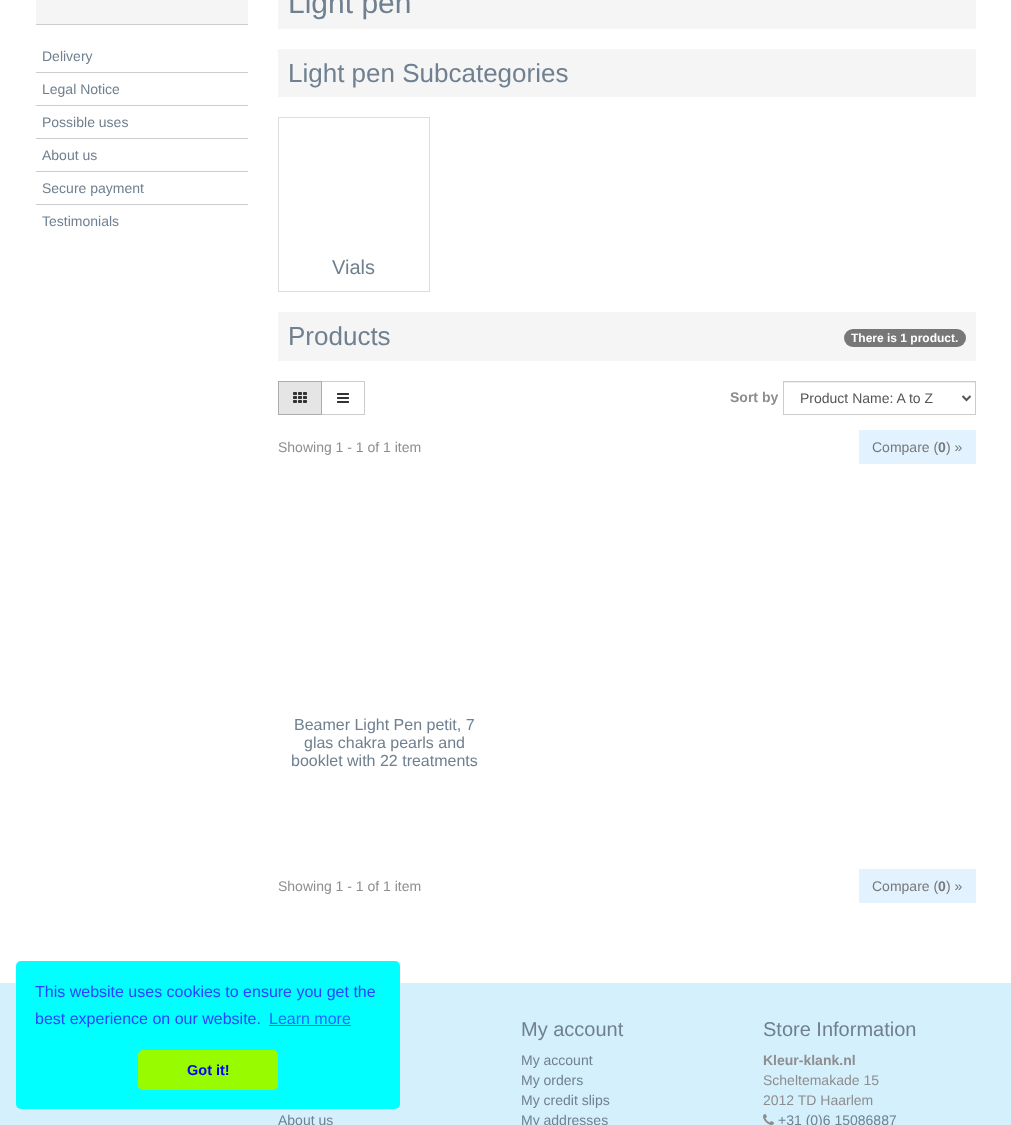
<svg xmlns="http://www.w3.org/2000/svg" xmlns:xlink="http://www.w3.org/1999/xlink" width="1011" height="1125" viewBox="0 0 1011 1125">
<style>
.cls-1{font:14px Liberation Sans;fill:#708090}
.cls-2{font:30px Liberation Sans;fill:#708090}
.cls-3{font:26px Liberation Sans;fill:#708090}
.cls-4{font:20px Liberation Sans;fill:#708090}
.cls-5{font:bold 12px Liberation Sans;fill:#ffffff}
.cls-6{font:bold 14px Liberation Sans;fill:#8f8d8e}
.cls-7{font:14px Liberation Sans;fill:#555555}
.cls-8{font:14px Liberation Sans;fill:#8f8d8e}
.cls-9{font:14px Liberation Sans;fill:#787878}
.cls-10{font:bold 14px Liberation Sans;fill:#787878}
.cls-11{font:16px Liberation Sans;fill:#708090}
.cls-12{font:16px Liberation Sans;fill:#2b42ff}
.cls-13{font:16px Liberation Sans;fill:#2268ff}
.cls-14{font:bold 14.5px Liberation Sans;fill:#0000ff}
</style>
<rect width="100%" height="100%" fill="#ffffff"/>
<rect fill="#f5f5f5" x="36" y="0" width="212" height="24"/>
<rect fill="#cccccc" x="36" y="24" width="212" height="1"/>
<rect fill="#cccccc" x="36" y="72" width="212" height="1"/>
<rect fill="#cccccc" x="36" y="105" width="212" height="1"/>
<rect fill="#cccccc" x="36" y="138" width="212" height="1"/>
<rect fill="#cccccc" x="36" y="171" width="212" height="1"/>
<rect fill="#cccccc" x="36" y="204" width="212" height="1"/>
<rect fill="#f5f5f5" x="278" y="0" width="698" height="29"/>
<rect fill="#f5f5f5" x="278" y="49" width="698" height="48"/>
<rect fill="none" stroke="#dddddd" x="278.5" y="117.5" width="151" height="174"/>
<rect fill="#f5f5f5" x="278" y="312" width="698" height="49"/>
<rect fill="#777777" x="844" y="329" width="122" height="18" rx="9"/>
<rect fill="none" stroke="#cccccc" x="321.5" y="381.5" width="43" height="33"/>
<rect fill="#e6e5e5" stroke="#adadad" x="278.5" y="381.5" width="43" height="33"/>
<image xlink:href="image0.png" x="293" y="392" width="14" height="11"/>
<image xlink:href="image1.png" x="337" y="393" width="12" height="10"/>
<rect fill="#ececec" x="784" y="382" width="191" height="1"/>
<rect fill="none" stroke="#cccccc" x="783.5" y="381.5" width="192" height="33"/>
<path fill="none" stroke="#555555" stroke-width="2" d="M962.5 396L966.5 400L970.5 396"/>
<rect fill="#e2f3ff" x="859" y="430" width="117" height="34"/>
<rect fill="#e2f3ff" x="859" y="869" width="117" height="34"/>
<rect fill="#d4f0fc" x="0" y="983" width="1011" height="142"/>
<rect fill="#00ffff" x="16" y="961" width="384" height="148" rx="5"/>
<rect fill="#2268ff" x="269" y="1025" width="82" height="1"/>
<rect fill="#98fb00" x="138" y="1050" width="140" height="40" rx="5"/>
<image xlink:href="image2.png" x="763" y="1114" width="11" height="11"/>
<text class="cls-1" x="42" y="61">Delivery</text>
<text class="cls-1" x="42" y="94">Legal Notice</text>
<text class="cls-1" x="42" y="127">Possible uses</text>
<text class="cls-1" x="42" y="160">About us</text>
<text class="cls-1" x="42" y="193">Secure payment</text>
<text class="cls-1" x="42" y="226">Testimonials</text>
<text class="cls-2" x="288" y="13">Light pen</text>
<text class="cls-3" x="288" y="82">Light pen Subcategories</text>
<text class="cls-4" x="332" y="274">Vials</text>
<text class="cls-3" x="288" y="345">Products</text>
<text class="cls-5" x="851" y="342">There is 1 product.</text>
<text class="cls-6" x="730" y="402">Sort by</text>
<text class="cls-7" x="800" y="403">Product Name: A to Z</text>
<text class="cls-8" x="278" y="452">Showing 1 - 1 of 1 item</text>
<text class="cls-9" x="872" y="452">Compare (</text>
<text class="cls-10" x="938" y="452">0</text>
<text class="cls-9" x="946" y="452">) »</text>
<text class="cls-11" x="294" y="730">Beamer Light Pen petit, 7</text>
<text class="cls-11" x="304" y="748">glas chakra pearls and</text>
<text class="cls-11" x="291" y="766">booklet with 22 treatments</text>
<text class="cls-8" x="278" y="891">Showing 1 - 1 of 1 item</text>
<text class="cls-9" x="872" y="891">Compare (</text>
<text class="cls-10" x="938" y="891">0</text>
<text class="cls-9" x="946" y="891">) »</text>
<text class="cls-12"><tspan x="35" y="997">This website uses cookies to ensure you get the</tspan><tspan x="35" y="1024">best experience on our website.</tspan></text>
<text class="cls-13" x="269" y="1024">Learn more</text>
<text class="cls-14" x="187" y="1075">Got it!</text>
<text class="cls-1" x="278" y="1125">About us</text>
<text class="cls-4" x="521" y="1036">My account</text>
<text class="cls-1"><tspan x="521" y="1065">My account</tspan><tspan x="521" y="1085">My orders</tspan><tspan x="521" y="1105">My credit slips</tspan><tspan x="521" y="1125">My addresses</tspan></text>
<text class="cls-4" x="763" y="1036">Store Information</text>
<text class="cls-6" x="763" y="1065">Kleur-klank.nl</text>
<text class="cls-8"><tspan x="763" y="1085">Scheltemakade 15</tspan><tspan x="763" y="1105">2012 TD Haarlem</tspan></text>
<text class="cls-1" x="778" y="1125">+31 (0)6 15086887</text>
</svg>
